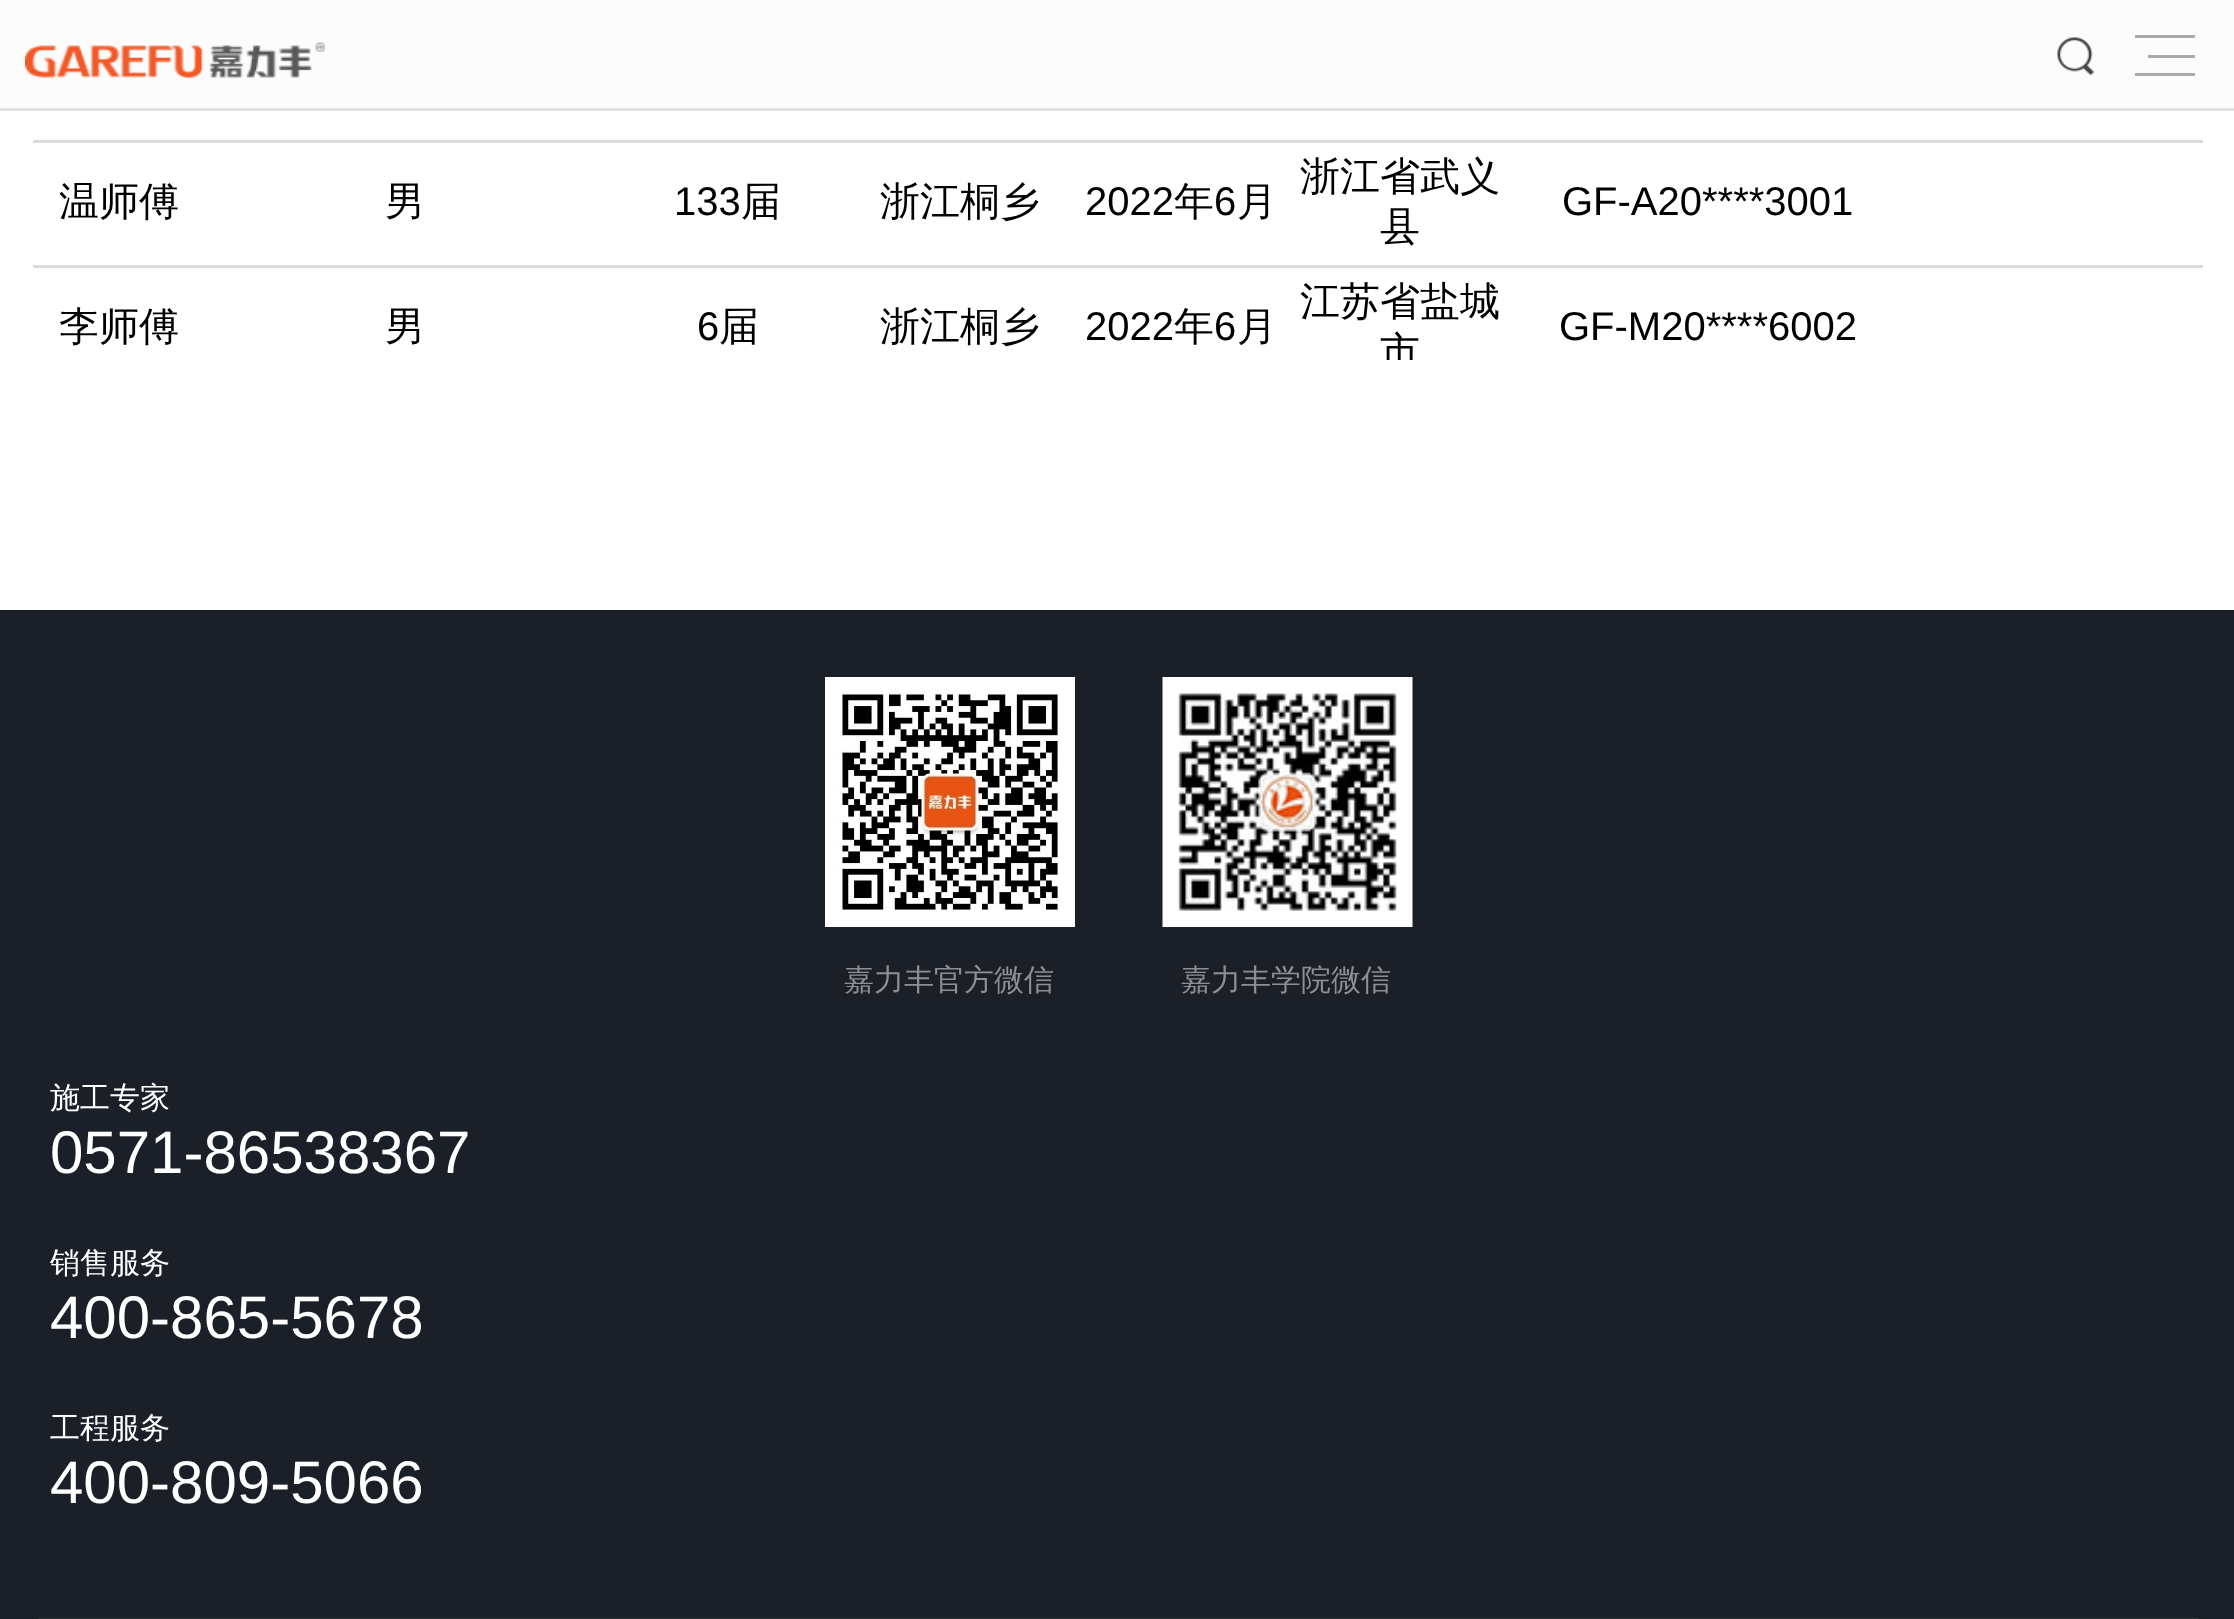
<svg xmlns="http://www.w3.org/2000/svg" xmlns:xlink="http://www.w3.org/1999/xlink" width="2234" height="1619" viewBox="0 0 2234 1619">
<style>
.cls-1{font:500 40px WenQuanYi Zen Hei;fill:#000000}
.cls-2{font:40px Liberation Sans;fill:#000000}
.cls-3{font:500 30px WenQuanYi Zen Hei;fill:#8d8f93}
.cls-4{font:500 30px WenQuanYi Zen Hei;fill:#ffffff}
.cls-5{font:60px Liberation Sans;fill:#ffffff}
</style>
<defs>
<clipPath id="clip1"><rect x="33" y="0" width="2170" height="360"/></clipPath>
</defs>
<rect width="100%" height="100%" fill="#ffffff"/>
<rect fill="#fcfcfc" x="0" y="0" width="2234" height="108"/>
<rect fill="#e1e1e1" x="0" y="108" width="2234" height="3"/>
<image xlink:href="image0.png" x="25" y="42" width="300" height="36"/>
<image xlink:href="image1.png" x="2057" y="37" width="37" height="39"/>
<rect fill="#aaaaaa" x="2135" y="35" width="60" height="3"/>
<rect fill="#aaaaaa" x="2148" y="55" width="47" height="3"/>
<rect fill="#aaaaaa" x="2135" y="73" width="60" height="3"/>
<rect fill="#dbdbdb" x="33" y="140" width="2170" height="3"/>
<rect fill="#dbdbdb" x="33" y="265" width="2170" height="3"/>
<rect fill="#1b1f28" x="0" y="610" width="2234" height="1009"/>
<rect fill="#2e3239" x="38" y="1618" width="2160" height="1"/>
<image xlink:href="image2.png" x="825" y="677" width="250" height="250"/>
<image xlink:href="image3.png" x="1162" y="677" width="251" height="250"/>
<text class="cls-1" x="59" y="215">温师傅</text>
<text class="cls-1" x="385" y="215">男</text>
<text class="cls-2" x="674" y="215">133</text>
<text class="cls-1" x="741" y="215">届</text>
<text class="cls-1" x="880" y="215">浙江桐乡</text>
<text class="cls-2" x="1085" y="215">2022</text>
<text class="cls-1" x="1174" y="215">年</text>
<text class="cls-2" x="1214" y="215">6</text>
<text class="cls-1" x="1237" y="215">月</text>
<text class="cls-1" x="1300" y="190">浙江省武义</text>
<text class="cls-1" x="1380" y="240">县</text>
<text class="cls-2" x="1562" y="215">GF-A20****3001</text>
<text class="cls-1" x="59" y="340">李师傅</text>
<text class="cls-1" x="385" y="340">男</text>
<text class="cls-2" x="697" y="340">6</text>
<text class="cls-1" x="719" y="340">届</text>
<text class="cls-1" x="880" y="340">浙江桐乡</text>
<text class="cls-2" x="1085" y="340">2022</text>
<text class="cls-1" x="1174" y="340">年</text>
<text class="cls-2" x="1214" y="340">6</text>
<text class="cls-1" x="1237" y="340">月</text>
<text class="cls-1" x="1300" y="315">江苏省盐城</text>
<g clip-path="url(#clip1)">
<text class="cls-1" x="1380" y="365">市</text>
</g>
<text class="cls-2" x="1559" y="340">GF-M20****6002</text>
<text class="cls-3" x="844" y="990">嘉力丰官方微信</text>
<text class="cls-3" x="1181" y="990">嘉力丰学院微信</text>
<text class="cls-4" x="50" y="1108">施工专家</text>
<text class="cls-5" x="50" y="1173">0571-86538367</text>
<text class="cls-4" x="50" y="1273">销售服务</text>
<text class="cls-5" x="50" y="1338">400-865-5678</text>
<text class="cls-4" x="50" y="1438">工程服务</text>
<text class="cls-5" x="50" y="1503">400-809-5066</text>
</svg>
